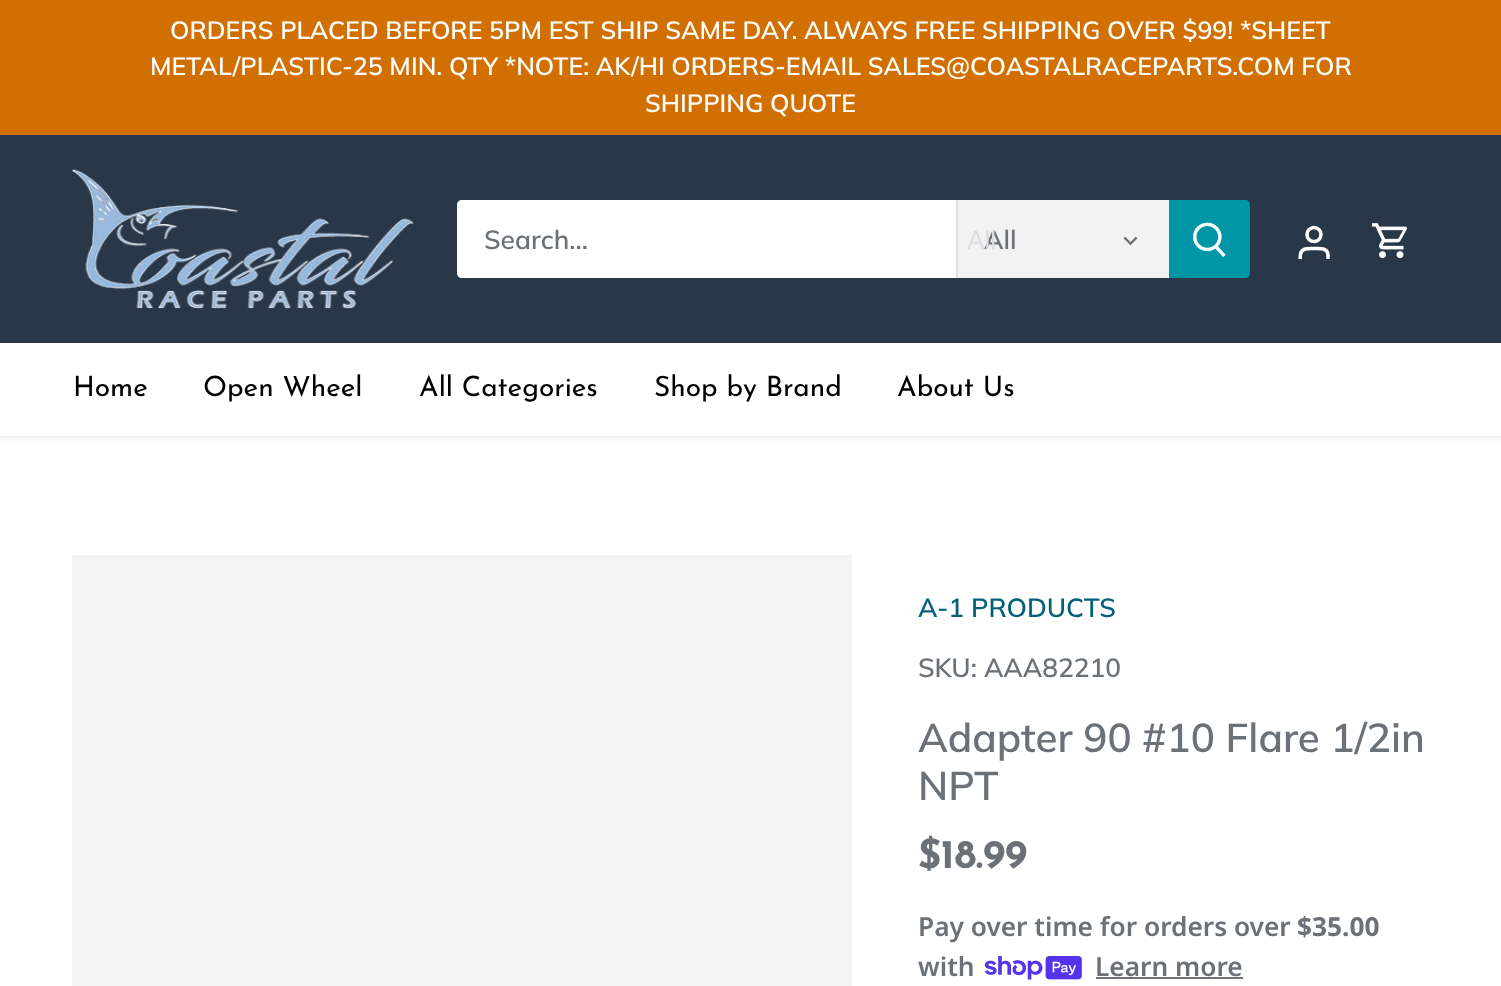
<svg xmlns="http://www.w3.org/2000/svg" xmlns:xlink="http://www.w3.org/1999/xlink" width="1501" height="986" viewBox="0 0 1501 986">
<style>
.cls-1{font:600 24.95px Muli;fill:#ffffff}
.cls-2{font:600 26.25px Muli;fill:#6b7177}
.cls-3{font:26.25px Liberation Sans;fill:#dcddde}
.cls-4{font:28px Josefin Sans;fill:#000000}
.cls-5{font:600 26.25px Muli;fill:#02607b}
.cls-6{font:600 40.25px Muli;fill:#6b7177}
.cls-7{font:bold 40.25px Josefin Sans;fill:#6b7177}
.cls-8{font:600 26.25px Noto Sans;fill:#6b7177}
.cls-9{font:bold 26.25px Noto Sans;fill:#6b7177}
</style>
<rect width="100%" height="100%" fill="#ffffff"/>
<rect fill="#000000" fill-opacity="0.08" filter="blur(2.5px)" x="-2" y="133" width="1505" height="305"/>
<rect fill="#d17000" x="0" y="0" width="1501" height="135"/>
<rect fill="#ffffff" x="0" y="343" width="1501" height="93"/>
<rect fill="#293849" x="0" y="135" width="1501" height="208"/>
<image xlink:href="image0.png" x="71" y="169" width="343" height="140"/>
<path fill="#ffffff" d="M462 200H956V278H462C459 278 457 276 457 273V205C457 202 459 200 462 200Z"/>
<rect fill="#f2f2f2" x="958" y="200" width="211" height="78"/>
<rect fill="#e0e1e2" x="956" y="200" width="2" height="78"/>
<image xlink:href="image1.png" x="1123" y="236" width="15" height="10"/>
<path fill="#0096a6" d="M1169 200H1245C1248 200 1250 202 1250 205V273C1250 276 1248 278 1245 278H1169Z"/>
<image xlink:href="image2.png" x="1193" y="222" width="33" height="35"/>
<circle fill="none" stroke="#ffffff" stroke-width="3.5" cx="1314" cy="234.5" r="7"/>
<path fill="none" stroke="#ffffff" stroke-width="3.5" d="M1328 259V254C1326.5 247.5 1319.5 248.5 1314 248.5C1309 248.5 1302 247.5 1300.5 254L1300 259"/>
<image xlink:href="image3.png" x="1372" y="223" width="35" height="36"/>
<rect fill="#f3f3f3" x="72" y="555" width="780" height="431"/>
<image xlink:href="image4.png" x="984" y="956" width="98" height="24"/>
<rect fill="#6b7177" x="1096" y="977" width="147" height="2"/>
<text class="cls-1" x="170" y="39">ORDERS PLACED BEFORE 5PM EST SHIP SAME DAY. ALWAYS FREE SHIPPING OVER $99! *SHEET</text>
<text class="cls-1" x="150" y="75">METAL/PLASTIC-25 MIN. QTY *NOTE: AK/HI ORDERS-EMAIL SALES@COASTALRACEPARTS.COM FOR</text>
<text class="cls-1" x="645" y="112">SHIPPING QUOTE</text>
<text class="cls-2" x="484" y="249">Search...</text>
<text class="cls-2" x="984" y="249">All</text>
<text class="cls-3" x="967" y="249">All</text>
<text class="cls-4" x="73" y="396">Home</text>
<text class="cls-4" x="203" y="396">Open Wheel</text>
<text class="cls-4" x="419" y="396">All Categories</text>
<text class="cls-4" x="654" y="396">Shop by Brand</text>
<text class="cls-4" x="897" y="396">About Us</text>
<text class="cls-5" x="918" y="617">A-1 PRODUCTS</text>
<text class="cls-2" x="918" y="677">SKU: AAA82210</text>
<text class="cls-6"><tspan x="918" y="752">Adapter 90 #10 Flare 1/2in</tspan><tspan x="918" y="800">NPT</tspan></text>
<text class="cls-7" x="918" y="868">$18.99</text>
<text class="cls-8" x="918" y="936">Pay over time for orders over</text>
<text class="cls-9" x="1297" y="936">$35.00</text>
<text class="cls-8" x="918" y="976">with</text>
<text class="cls-8" x="1095" y="976">Learn more</text>
</svg>
